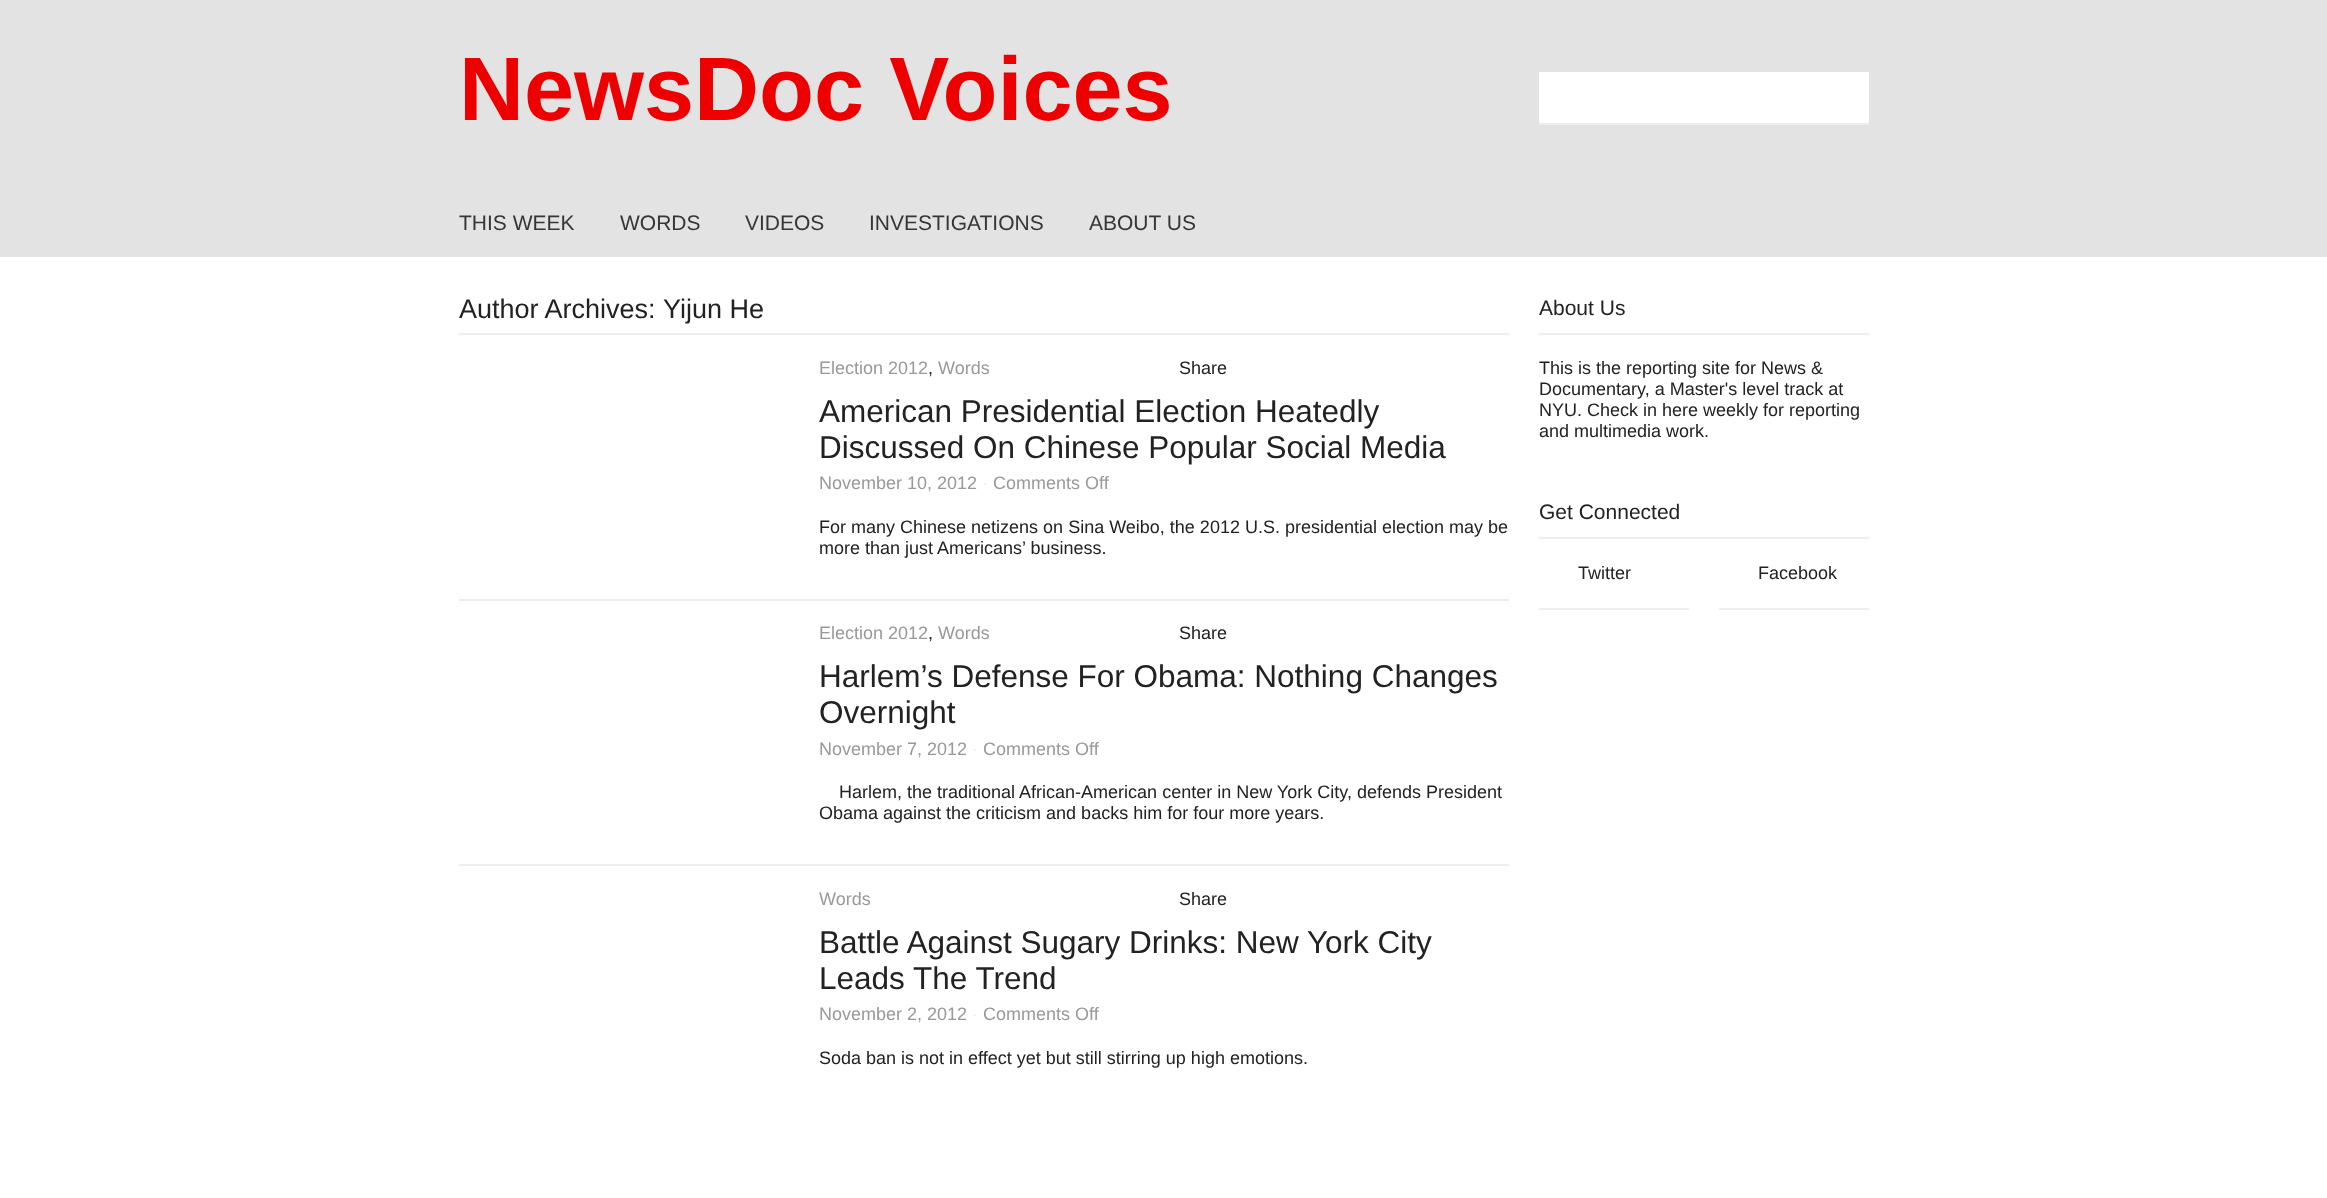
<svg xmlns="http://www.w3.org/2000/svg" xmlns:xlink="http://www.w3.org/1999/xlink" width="2327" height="1198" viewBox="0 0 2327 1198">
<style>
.cls-1{font:bold 90px Liberation Sans;fill:#ee0000}
.cls-2{font:21px Liberation Sans;fill:#363636}
.cls-3{font:27px Liberation Sans;fill:#222222}
.cls-4{font:18px Liberation Sans;fill:#999999}
.cls-5{font:18px Liberation Sans;fill:#222222}
.cls-6{font:31.5px Liberation Sans;fill:#222222}
.cls-7{font:18px Liberation Sans;fill:#eeeeee}
.cls-8{font:21px Liberation Sans;fill:#222222}
</style>
<rect width="100%" height="100%" fill="#ffffff"/>
<rect fill="#e3e3e3" x="0" y="0" width="2327" height="257"/>
<rect fill="#ffffff" x="1539" y="72" width="330" height="51"/>
<rect fill="#eeeeee" x="1539" y="123" width="330" height="2"/>
<rect fill="#eeeeee" x="459" y="333" width="1050" height="2"/>
<rect fill="#eeeeee" x="459" y="599" width="1050" height="2"/>
<rect fill="#eeeeee" x="459" y="864" width="1050" height="2"/>
<rect fill="#eeeeee" x="1539" y="333" width="330" height="2"/>
<rect fill="#eeeeee" x="1539" y="537" width="330" height="2"/>
<rect fill="#eeeeee" x="1539" y="608" width="150" height="2"/>
<rect fill="#eeeeee" x="1719" y="608" width="150" height="2"/>
<text class="cls-1" x="459" y="120">NewsDoc Voices</text>
<text class="cls-2" x="459" y="230">THIS WEEK</text>
<text class="cls-2" x="620" y="230">WORDS</text>
<text class="cls-2" x="745" y="230">VIDEOS</text>
<text class="cls-2" x="869" y="230">INVESTIGATIONS</text>
<text class="cls-2" x="1089" y="230">ABOUT US</text>
<text class="cls-3" x="459" y="318">Author Archives:</text>
<text class="cls-3" x="663" y="318">Yijun He</text>
<text class="cls-4" x="819" y="374">Election 2012</text>
<text class="cls-5" x="928" y="374">,</text>
<text class="cls-4" x="938" y="374">Words</text>
<text class="cls-5" x="1179" y="374">Share</text>
<text class="cls-6"><tspan x="819" y="422">American Presidential Election Heatedly</tspan><tspan x="819" y="458">Discussed On Chinese Popular Social Media</tspan></text>
<text class="cls-4" x="819" y="489">November 10, 2012</text>
<text class="cls-7" x="982" y="489">·</text>
<text class="cls-4" x="993" y="489">Comments Off</text>
<text class="cls-5"><tspan x="819" y="533">For many Chinese netizens on Sina Weibo, the 2012 U.S. presidential election may be</tspan><tspan x="819" y="554">more than just Americans’ business.</tspan></text>
<text class="cls-4" x="819" y="639">Election 2012</text>
<text class="cls-5" x="928" y="639">,</text>
<text class="cls-4" x="938" y="639">Words</text>
<text class="cls-5" x="1179" y="639">Share</text>
<text class="cls-6"><tspan x="819" y="687">Harlem’s Defense For Obama: Nothing Changes</tspan><tspan x="819" y="723">Overnight</tspan></text>
<text class="cls-4" x="819" y="755">November 7, 2012</text>
<text class="cls-7" x="972" y="755">·</text>
<text class="cls-4" x="983" y="755">Comments Off</text>
<text class="cls-5" x="839" y="798">Harlem, the traditional African-American center in New York City, defends President</text>
<text class="cls-5" x="819" y="819">Obama against the criticism and backs him for four more years.</text>
<text class="cls-4" x="819" y="905">Words</text>
<text class="cls-5" x="1179" y="905">Share</text>
<text class="cls-6"><tspan x="819" y="953">Battle Against Sugary Drinks: New York City</tspan><tspan x="819" y="989">Leads The Trend</tspan></text>
<text class="cls-4" x="819" y="1020">November 2, 2012</text>
<text class="cls-7" x="972" y="1020">·</text>
<text class="cls-4" x="983" y="1020">Comments Off</text>
<text class="cls-5" x="819" y="1064">Soda ban is not in effect yet but still stirring up high emotions.</text>
<text class="cls-8" x="1539" y="315">About Us</text>
<text class="cls-5"><tspan x="1539" y="374">This is the reporting site for News &amp;</tspan><tspan x="1539" y="395">Documentary, a Master's level track at</tspan><tspan x="1539" y="416">NYU. Check in here weekly for reporting</tspan><tspan x="1539" y="437">and multimedia work.</tspan></text>
<text class="cls-8" x="1539" y="519">Get Connected</text>
<text class="cls-5" x="1578" y="579">Twitter</text>
<text class="cls-5" x="1758" y="579">Facebook</text>
</svg>
